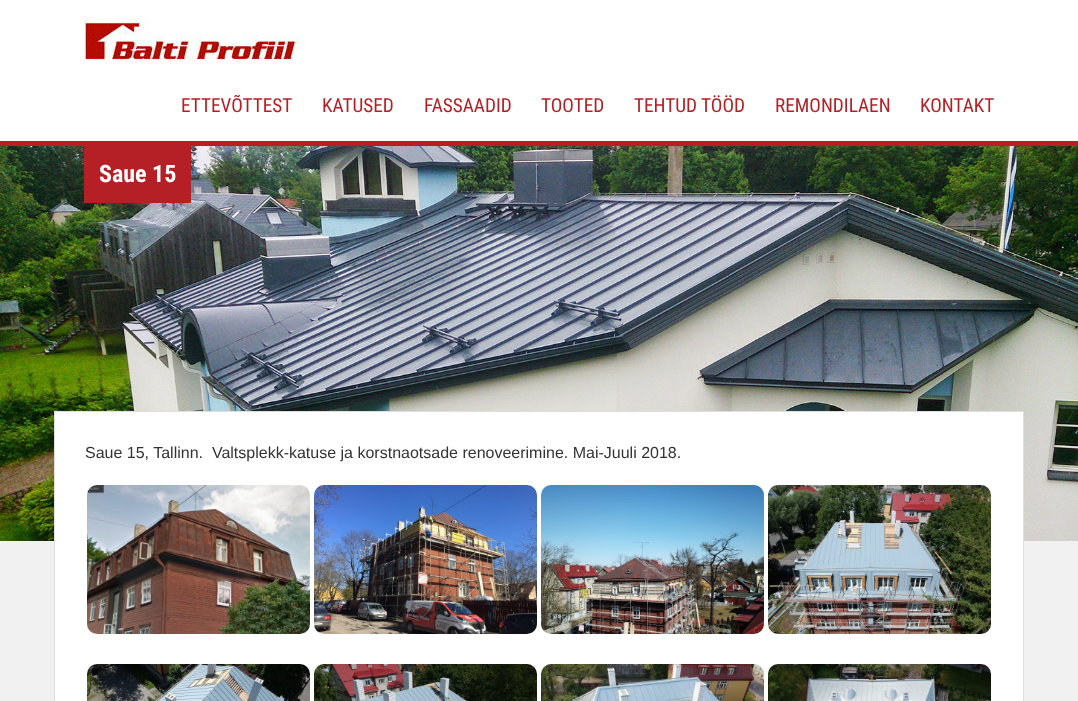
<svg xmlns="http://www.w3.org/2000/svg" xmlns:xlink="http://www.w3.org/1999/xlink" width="1078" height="701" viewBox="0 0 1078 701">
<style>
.cls-1{font:19.25px Roboto Condensed;fill:#b42025}
.cls-2{font:bold 24px Roboto Condensed;fill:#ffffff}
.cls-3{font:16px Liberation Sans;fill:#333333}
</style>
<rect width="100%" height="100%" fill="#f1f1f1"/>
<rect fill="#ffffff" x="0" y="0" width="1078" height="141"/>
<image xlink:href="image0.png" x="84" y="19" width="221" height="42"/>
<image xlink:href="image1.png" x="0" y="146" width="1078" height="395"/>
<rect fill="#b42025" x="0" y="141" width="1078" height="5"/>
<rect fill="#b42025" x="84" y="146" width="107" height="57"/>
<rect fill="#ffffff" stroke="#dedede" x="54.5" y="411.5" width="969" height="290"/>
<image xlink:href="image2.png" x="87" y="485" width="223" height="149"/>
<image xlink:href="image3.png" x="314" y="485" width="223" height="149"/>
<image xlink:href="image4.png" x="541" y="485" width="223" height="149"/>
<image xlink:href="image5.png" x="768" y="485" width="223" height="149"/>
<image xlink:href="image6.png" x="87" y="664" width="223" height="37"/>
<image xlink:href="image7.png" x="314" y="664" width="223" height="37"/>
<image xlink:href="image8.png" x="541" y="664" width="223" height="37"/>
<image xlink:href="image9.png" x="768" y="664" width="223" height="37"/>
<text class="cls-1" x="181" y="112">ETTEVÕTTEST</text>
<text class="cls-1" x="322" y="112">KATUSED</text>
<text class="cls-1" x="424" y="112">FASSAADID</text>
<text class="cls-1" x="541" y="112">TOOTED</text>
<text class="cls-1" x="634" y="112">TEHTUD TÖÖD</text>
<text class="cls-1" x="775" y="112">REMONDILAEN</text>
<text class="cls-1" x="920" y="112">KONTAKT</text>
<text class="cls-2" x="99" y="182">Saue 15</text>
<text class="cls-3" xml:space="preserve" x="85" y="458">Saue 15, Tallinn.  Valtsplekk-katuse ja korstnaotsade renoveerimine. Mai-Juuli 2018.</text>
</svg>
